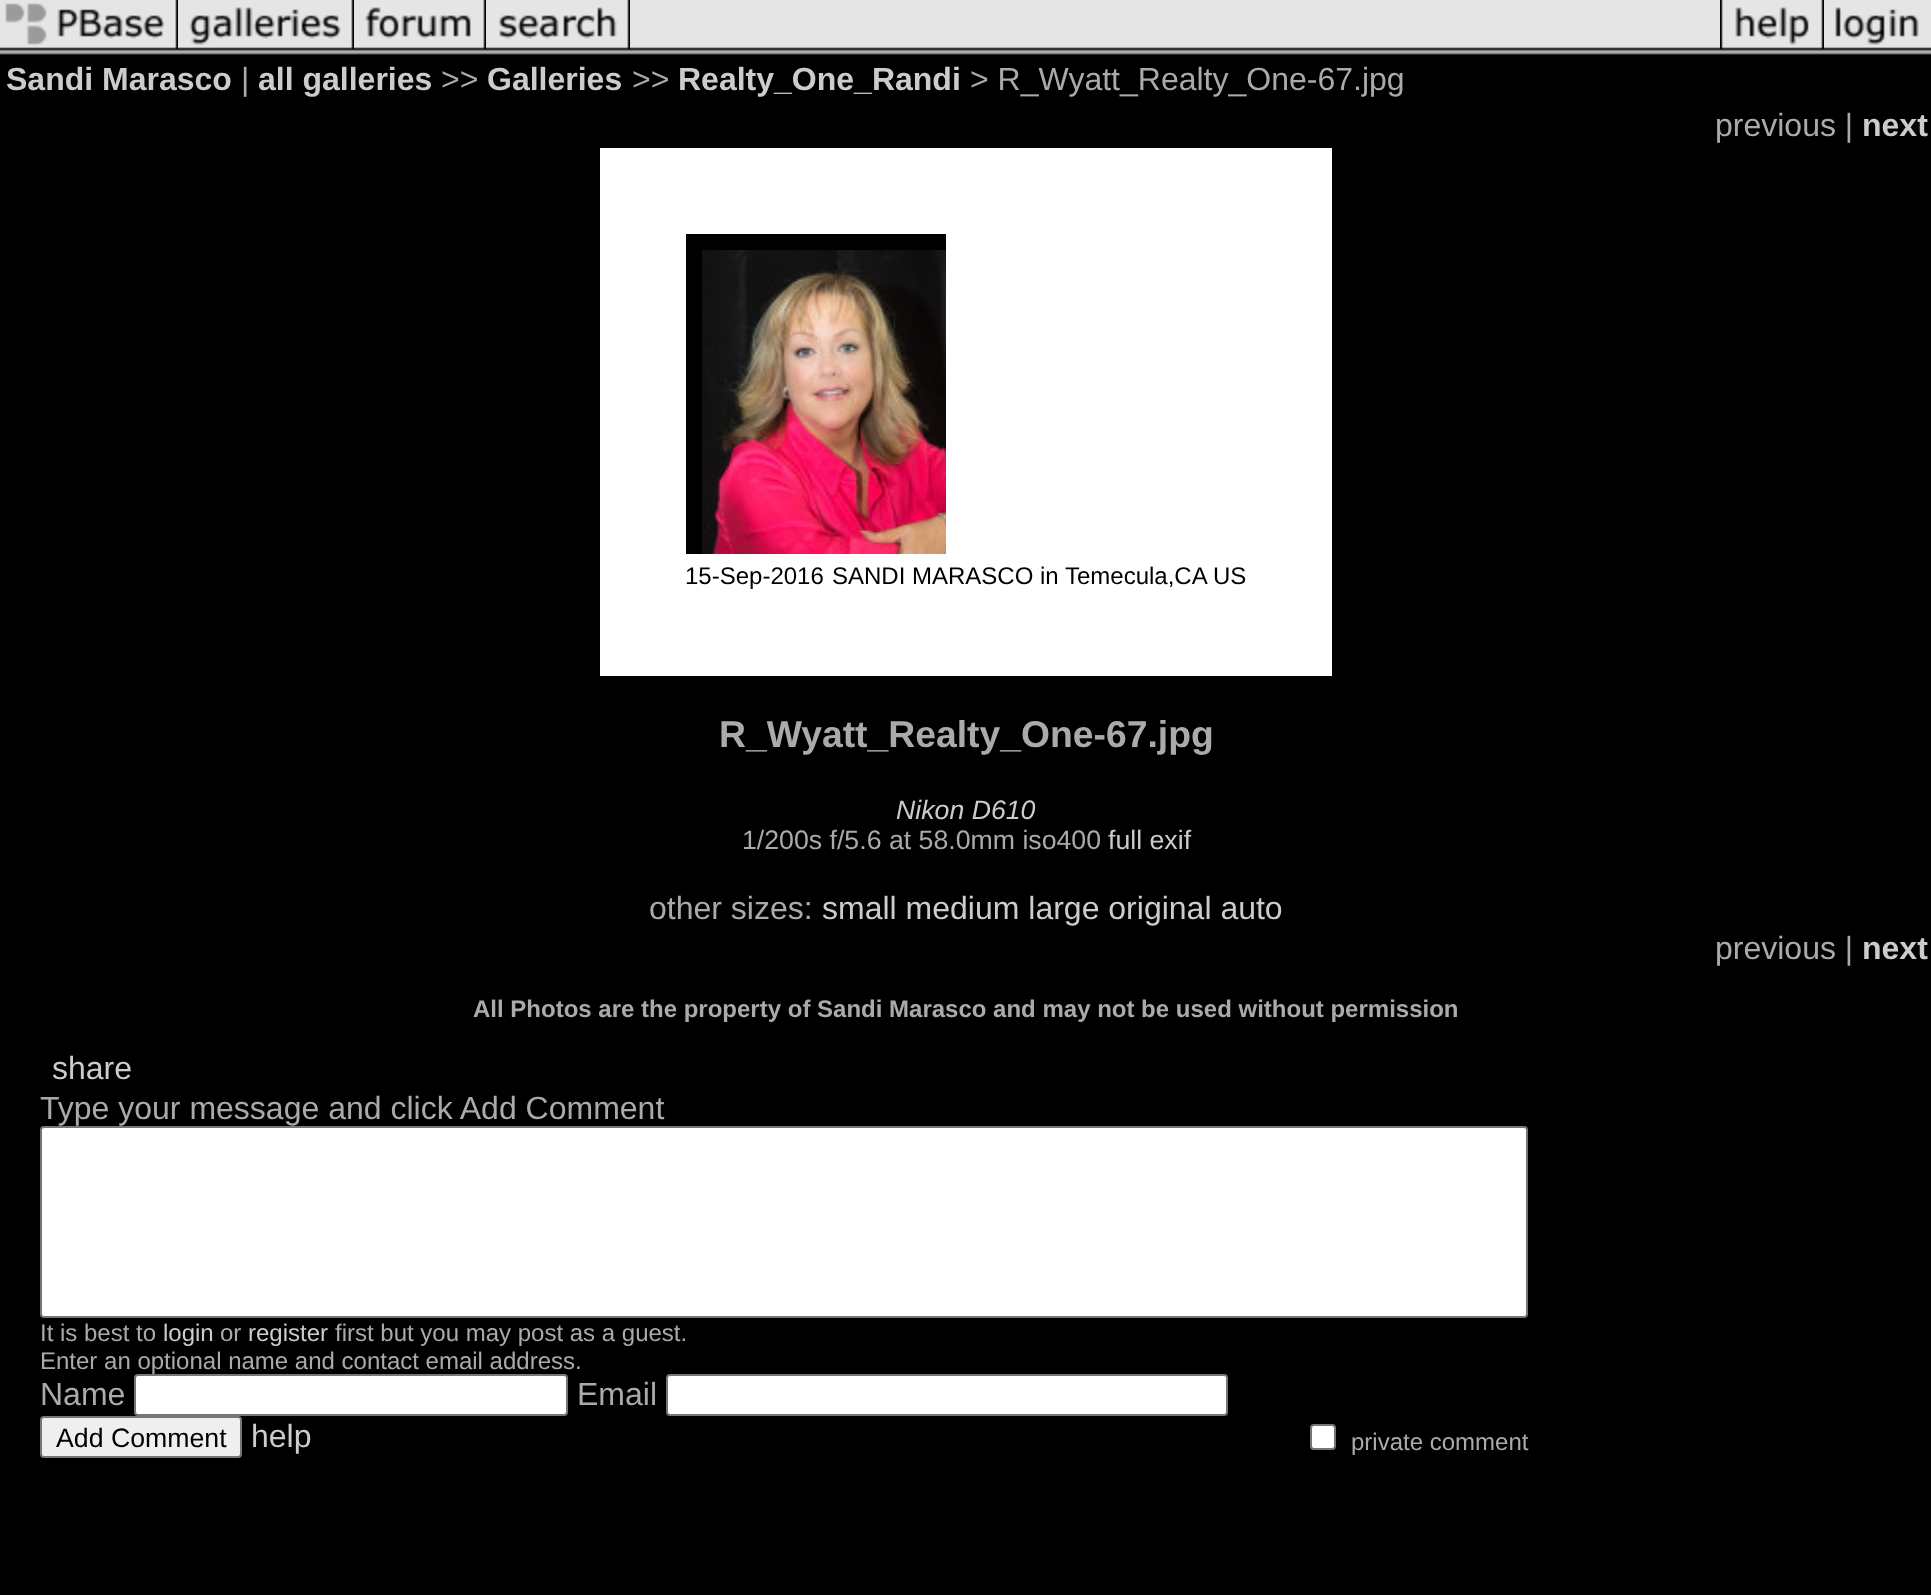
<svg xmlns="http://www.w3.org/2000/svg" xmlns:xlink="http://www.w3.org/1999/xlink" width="1931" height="1595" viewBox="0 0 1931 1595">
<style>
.cls-1{font:bold 32px Liberation Sans;fill:#cccccc}
.cls-2{font:32px Liberation Sans;fill:#aaaaaa}
.cls-3{font:24px Liberation Sans;fill:#000000}
.cls-4{font:bold 37.3px Liberation Sans;fill:#aaaaaa}
.cls-5{font:italic 26.7px Liberation Sans;fill:#cccccc}
.cls-6{font:26.7px Liberation Sans;fill:#aaaaaa}
.cls-7{font:26.7px Liberation Sans;fill:#cccccc}
.cls-8{font:32px Liberation Sans;fill:#cccccc}
.cls-9{font:bold 24px Liberation Sans;fill:#aaaaaa}
.cls-10{font:24px Liberation Sans;fill:#aaaaaa}
.cls-11{font:24px Liberation Sans;fill:#cccccc}
.cls-12{font:26.7px Liberation Sans;fill:#000000}
</style>
<defs>
<clipPath id="clip1"><rect x="686" y="234" width="260" height="320"/></clipPath>
</defs>
<rect width="100%" height="100%" fill="#000000"/>
<image xlink:href="image0.png" x="0" y="0" width="178" height="55"/>
<image xlink:href="image1.png" x="178" y="0" width="176" height="55"/>
<image xlink:href="image2.png" x="354" y="0" width="132" height="55"/>
<image xlink:href="image3.png" x="486" y="0" width="144" height="55"/>
<image xlink:href="image4.png" x="630" y="0" width="1090" height="55"/>
<image xlink:href="image5.png" x="1720" y="0" width="104" height="55"/>
<image xlink:href="image6.png" x="1824" y="0" width="107" height="55"/>
<rect fill="#ffffff" x="600" y="148" width="732" height="528"/>
<g clip-path="url(#clip1)">
<rect fill="none" stroke="#000000" stroke-width="16" x="694" y="242" width="270" height="330"/>
</g>
<image xlink:href="image7.png" x="702" y="250" width="244" height="304"/>
<rect fill="#ffffff" stroke="#767676" stroke-width="2" x="41" y="1127" width="1486" height="190" rx="3"/>
<rect fill="#ffffff" stroke="#767676" stroke-width="2" x="135" y="1375" width="432" height="40" rx="3"/>
<rect fill="#ffffff" stroke="#767676" stroke-width="2" x="667" y="1375" width="560" height="40" rx="3"/>
<rect fill="#efefef" stroke="#767676" stroke-width="2" x="41" y="1417" width="200" height="40" rx="3"/>
<rect fill="#ffffff" stroke="#767676" stroke-width="2" x="1311" y="1425" width="24" height="24" rx="3"/>
<text class="cls-1" x="6" y="90">Sandi Marasco</text>
<text class="cls-2" x="241" y="90">|</text>
<text class="cls-1" x="258" y="90">all galleries</text>
<text class="cls-2" x="441" y="90">&gt;&gt;</text>
<text class="cls-1" x="487" y="90">Galleries</text>
<text class="cls-2" x="632" y="90">&gt;&gt;</text>
<text class="cls-1" x="678" y="90">Realty_One_Randi</text>
<text class="cls-2" x="970" y="90">&gt; R_Wyatt_Realty_One-67.jpg</text>
<text class="cls-2" x="1715" y="136">previous |</text>
<text class="cls-1" x="1862" y="136">next</text>
<text class="cls-3" x="685" y="584">15-Sep-2016</text>
<text class="cls-3" x="832" y="584">SANDI MARASCO in Temecula,CA US</text>
<text class="cls-4" x="719" y="747">R_Wyatt_Realty_One-67.jpg</text>
<text class="cls-5" x="896" y="819">Nikon D610</text>
<text class="cls-6" x="742" y="849">1/200s f/5.6 at 58.0mm iso400</text>
<text class="cls-7" x="1108" y="849">full exif</text>
<text class="cls-2" x="649" y="919">other sizes:</text>
<text class="cls-8" x="822" y="919">small medium large original auto</text>
<text class="cls-2" x="1715" y="959">previous |</text>
<text class="cls-1" x="1862" y="959">next</text>
<text class="cls-9" x="473" y="1017">All Photos are the property of Sandi Marasco and may not be used without permission</text>
<text class="cls-8" x="52" y="1079">share</text>
<text class="cls-2" x="40" y="1119">Type your message and click Add Comment</text>
<text class="cls-10" x="40" y="1341">It is best to</text>
<text class="cls-11" x="163" y="1341">login</text>
<text class="cls-10" x="220" y="1341">or</text>
<text class="cls-11" x="248" y="1341">register</text>
<text class="cls-10" x="335" y="1341">first but you may post as a guest.</text>
<text class="cls-10" x="40" y="1369">Enter an optional name and contact email address.</text>
<text class="cls-2" x="40" y="1405">Name</text>
<text class="cls-2" x="577" y="1405">Email</text>
<text class="cls-12" x="56" y="1447">Add Comment</text>
<text class="cls-8" x="251" y="1447">help</text>
<text class="cls-10" x="1351" y="1450">private comment</text>
</svg>
